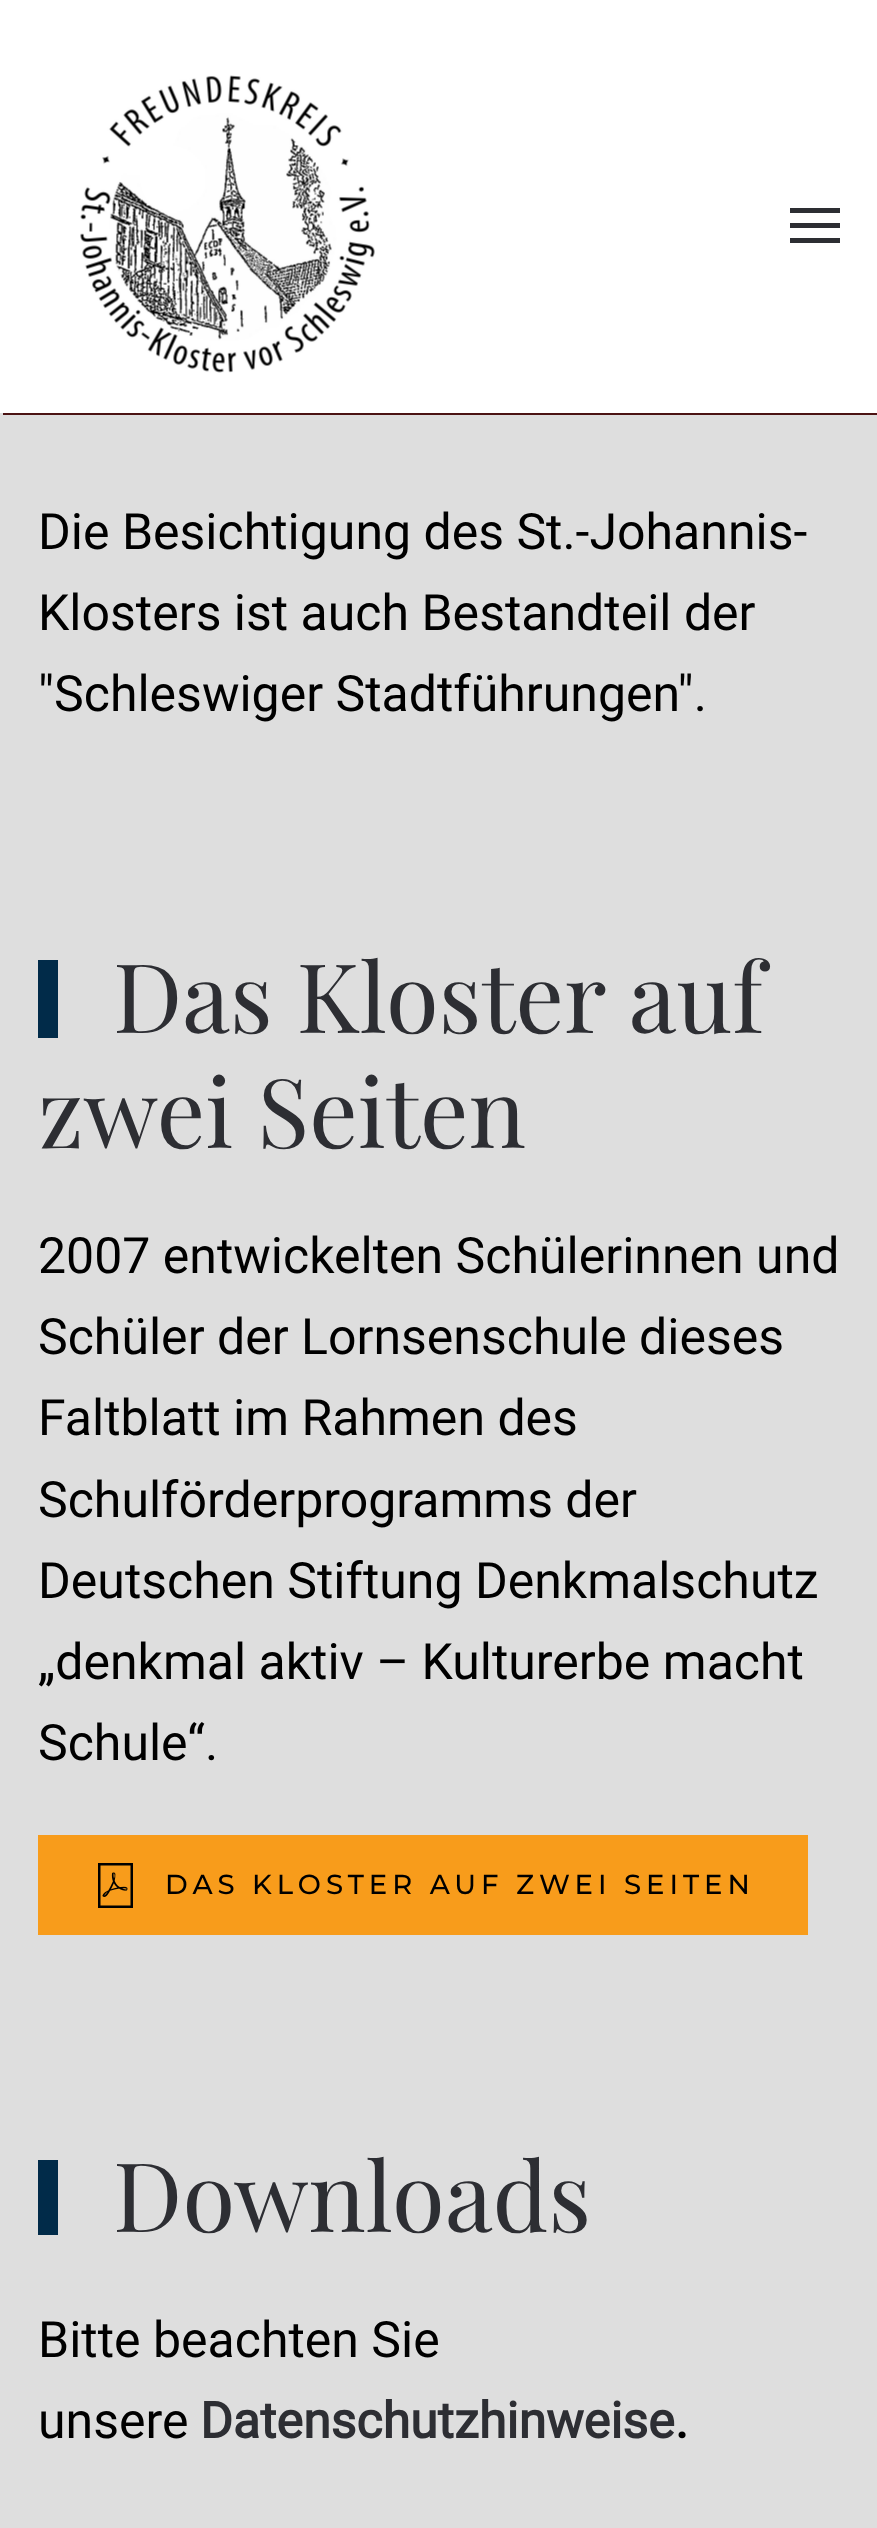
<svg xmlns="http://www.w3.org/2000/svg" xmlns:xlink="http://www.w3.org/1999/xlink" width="877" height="2528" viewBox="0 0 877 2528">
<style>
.cls-1{font:50px Roboto;fill:#000000}
.cls-2{font:96px Playfair Display;fill:#2d2e33}
.cls-3{font:100 27.5px Montserrat;letter-spacing:5px;fill:#000000}
.cls-4{font:bold 50px Roboto;fill:#2d2e33}
.cls-5{font:bold 50px Roboto;fill:#000000}
</style>
<rect width="100%" height="100%" fill="#dedede"/>
<path fill="#4b1313" d="M3 412V415H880V3H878V412Z"/>
<rect fill="#ffffff" x="0" y="0" width="877" height="413"/>
<image xlink:href="image0.png" x="80" y="75" width="295" height="298"/>
<rect fill="#2d2e33" x="790" y="208" width="50" height="5"/>
<rect fill="#2d2e33" x="790" y="223" width="50" height="5"/>
<rect fill="#2d2e33" x="790" y="238" width="50" height="5"/>
<rect fill="#012b49" x="38" y="960" width="20" height="78"/>
<rect fill="#f89c1b" x="38" y="1835" width="770" height="100"/>
<image xlink:href="image1.png" x="98" y="1863" width="35" height="45"/>
<rect fill="#012b49" x="38" y="2160" width="20" height="75"/>
<text class="cls-1"><tspan x="38" y="549">Die Besichtigung des St.-Johannis-</tspan><tspan x="38" y="630">Klosters ist auch Bestandteil der</tspan><tspan x="38" y="711">"Schleswiger Stadtführungen".</tspan></text>
<text class="cls-2" x="113" y="1033">Das Kloster auf</text>
<text class="cls-2" x="38" y="1148">zwei Seiten</text>
<text class="cls-1"><tspan x="38" y="1273">2007 entwickelten Schülerinnen und</tspan><tspan x="38" y="1354">Schüler der Lornsenschule dieses</tspan><tspan x="38" y="1435">Faltblatt im Rahmen des</tspan><tspan x="38" y="1517">Schulförderprogramms der</tspan><tspan x="38" y="1598">Deutschen Stiftung Denkmalschutz</tspan><tspan x="38" y="1679">„denkmal aktiv – Kulturerbe macht</tspan><tspan x="38" y="1760">Schule“.</tspan></text>
<text class="cls-3" x="165" y="1894">DAS KLOSTER AUF ZWEI SEITEN</text>
<text class="cls-2" x="113" y="2232">Downloads</text>
<text class="cls-1"><tspan x="38" y="2357">Bitte beachten Sie</tspan><tspan x="38" y="2438">unsere</tspan></text>
<text class="cls-4" x="200" y="2438">Datenschutzhinweise</text>
<text class="cls-5" x="675" y="2438">.</text>
</svg>
